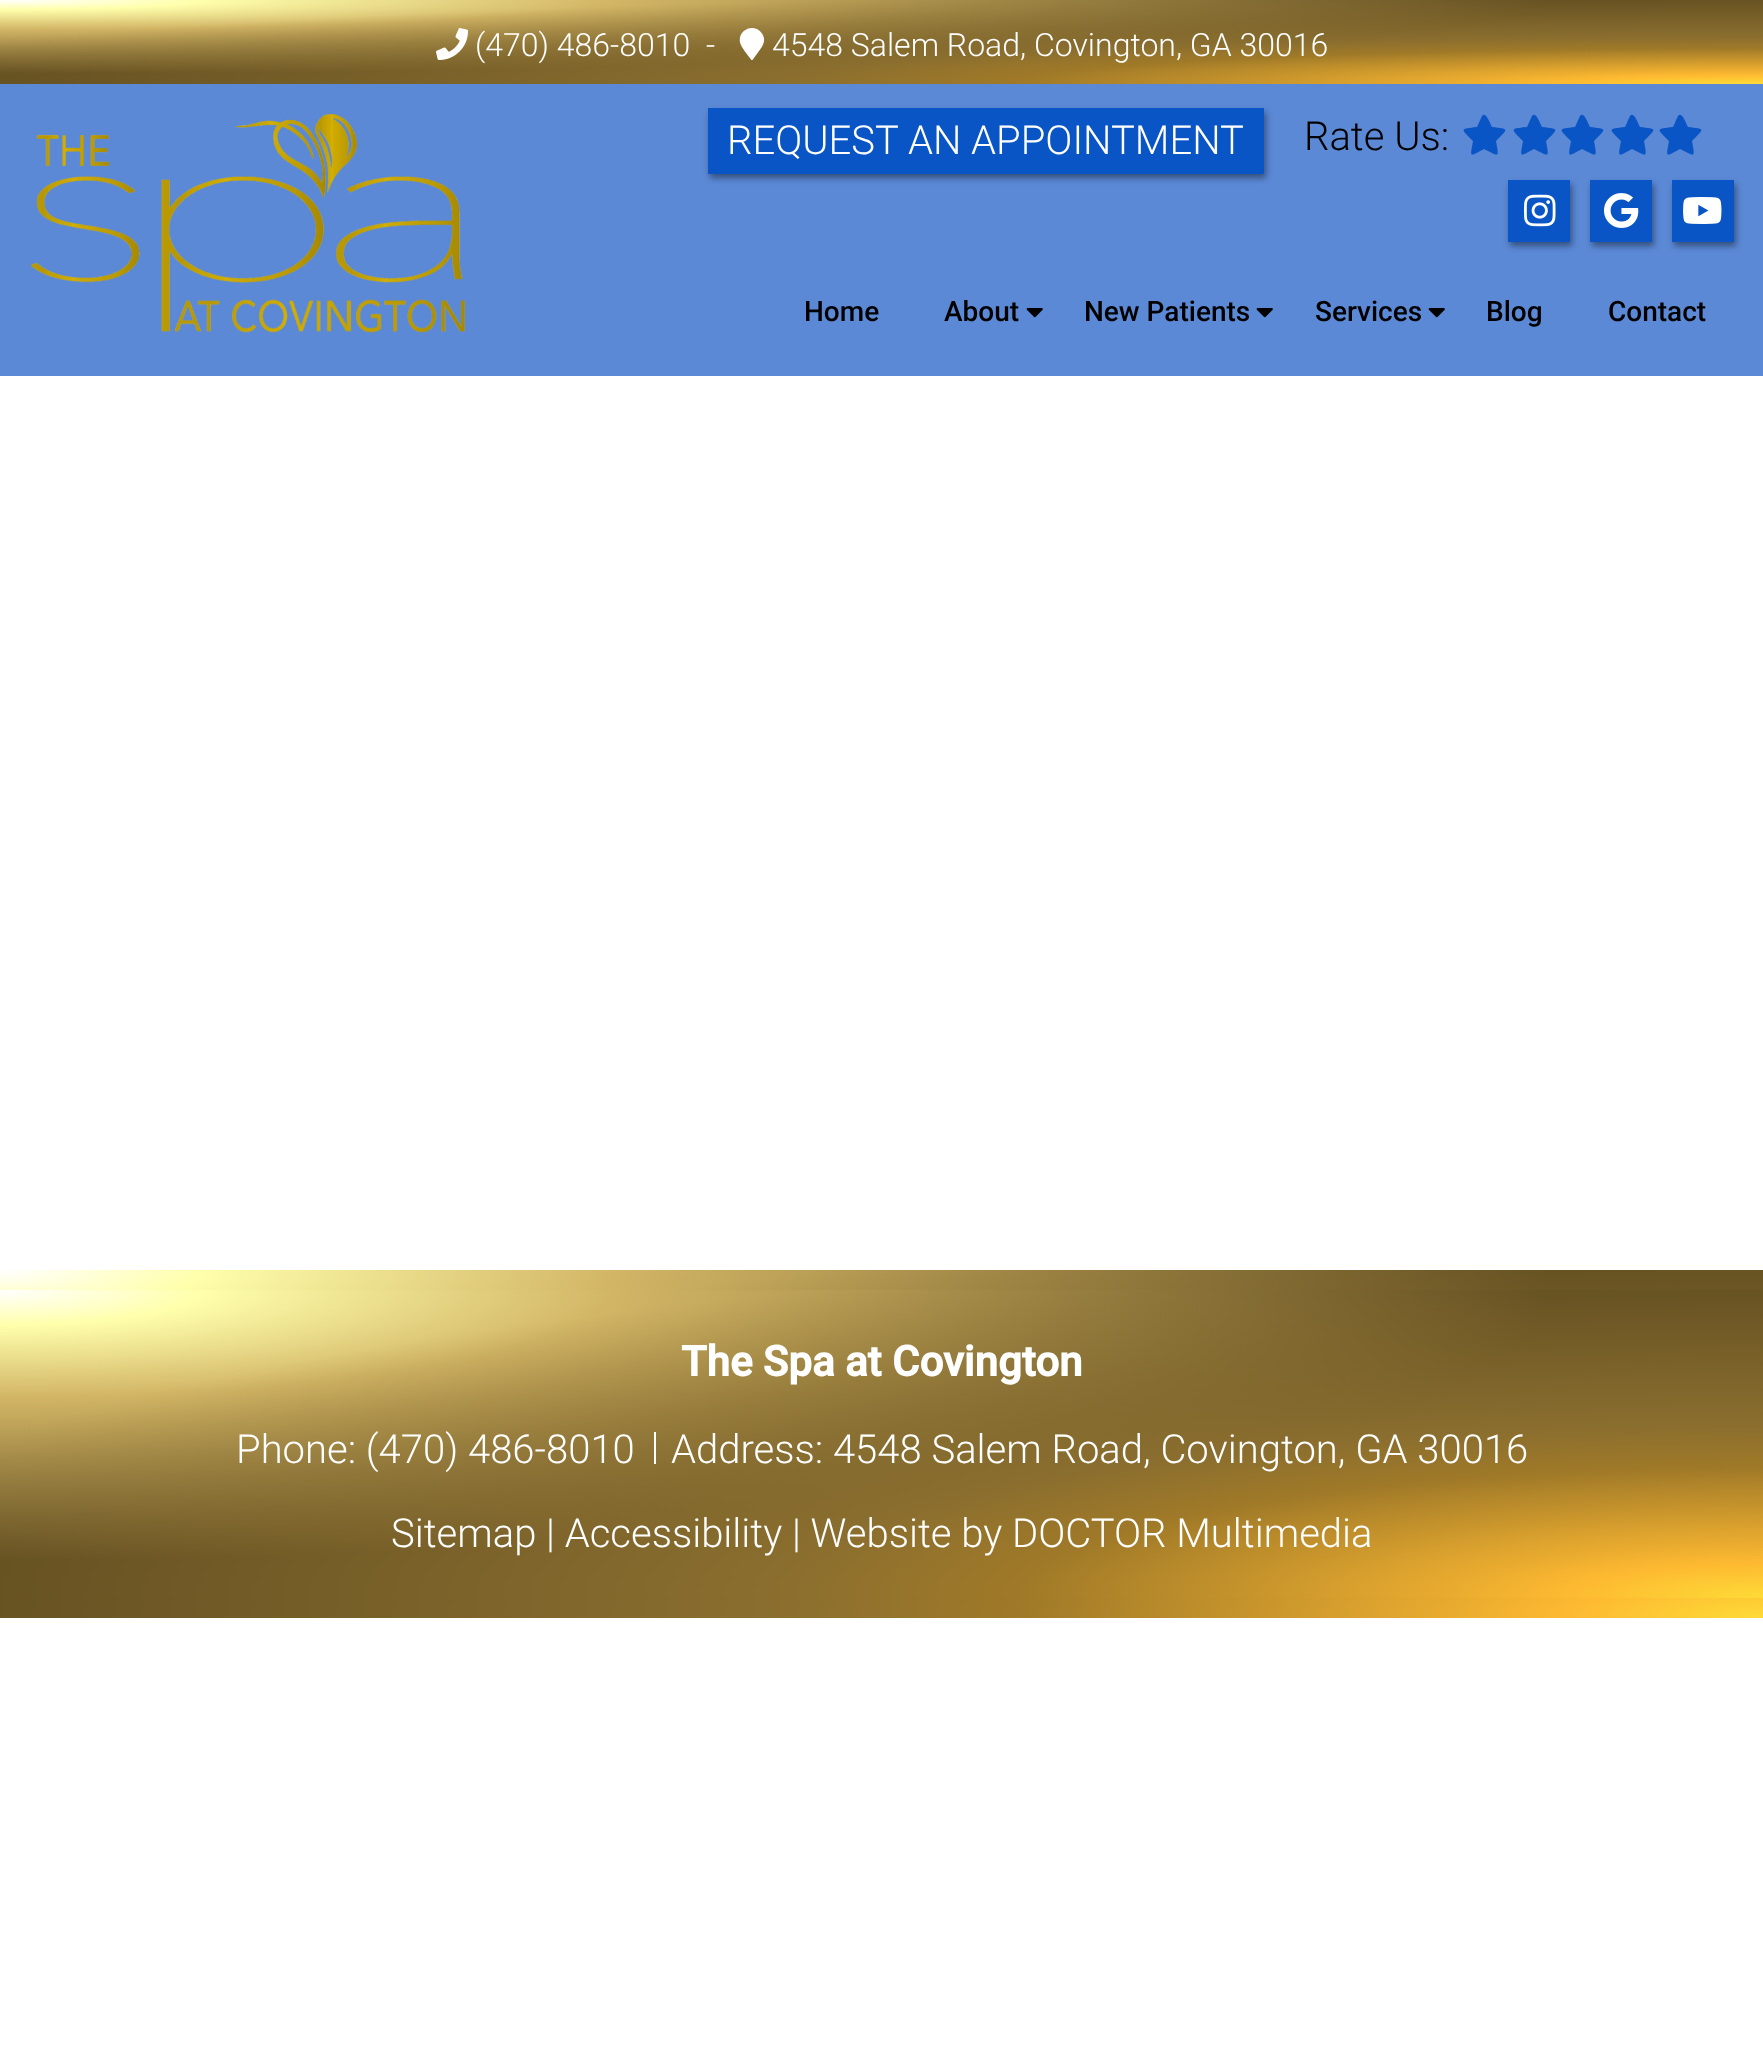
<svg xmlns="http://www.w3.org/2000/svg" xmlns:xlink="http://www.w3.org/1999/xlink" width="1763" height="2058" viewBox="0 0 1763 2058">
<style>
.cls-1{font:300 32px Roboto;fill:#ffffff}
.cls-2{font:300 40px Roboto;fill:#ffffff}
.cls-3{font:300 40px Roboto;fill:#000000}
.cls-4{font:500 28px Roboto;fill:#000000}
.cls-5{font:bold 42px Roboto;fill:#ffffff}
</style>
<defs>
<radialGradient id="g1" gradientUnits="userSpaceOnUse" cx="0" cy="0" r="1" gradientTransform="matrix(2495 0 0 119 0 0)"><stop offset="0" stop-color="#ffffff"/><stop offset="0.08" stop-color="#ffffac"/><stop offset="0.25" stop-color="#d1b464"/><stop offset="0.62" stop-color="#5d4a1f"/><stop offset="1" stop-color="#5d4a1f"/></radialGradient>
<radialGradient id="g2" gradientUnits="userSpaceOnUse" cx="0" cy="0" r="1" gradientTransform="matrix(2495 0 0 119 1764 84)"><stop offset="0" stop-color="#fedb37"/><stop offset="0.08" stop-color="#fdb931"/><stop offset="0.3" stop-color="#9f7928"/><stop offset="0.4" stop-color="#8a6e2f"/><stop offset="0.8" stop-color="#8a6e2f" stop-opacity="0"/></radialGradient>
<radialGradient id="g3" gradientUnits="userSpaceOnUse" cx="0" cy="0" r="1" gradientTransform="matrix(2495 0 0 492 0 1270)"><stop offset="0" stop-color="#ffffff"/><stop offset="0.08" stop-color="#ffffac"/><stop offset="0.25" stop-color="#d1b464"/><stop offset="0.62" stop-color="#5d4a1f"/><stop offset="1" stop-color="#5d4a1f"/></radialGradient>
<radialGradient id="g4" gradientUnits="userSpaceOnUse" cx="0" cy="0" r="1" gradientTransform="matrix(2495 0 0 492 1764 1618)"><stop offset="0" stop-color="#fedb37"/><stop offset="0.08" stop-color="#fdb931"/><stop offset="0.3" stop-color="#9f7928"/><stop offset="0.4" stop-color="#8a6e2f"/><stop offset="0.8" stop-color="#8a6e2f" stop-opacity="0"/></radialGradient>
<radialGradient id="g5" gradientUnits="userSpaceOnUse" cx="0" cy="0" r="1" gradientTransform="matrix(2495 0 0 436 0 1290)"><stop offset="0" stop-color="#ffffff"/><stop offset="0.08" stop-color="#ffffac"/><stop offset="0.25" stop-color="#d1b464"/><stop offset="0.62" stop-color="#5d4a1f"/><stop offset="1" stop-color="#5d4a1f"/></radialGradient>
<radialGradient id="g6" gradientUnits="userSpaceOnUse" cx="0" cy="0" r="1" gradientTransform="matrix(2495 0 0 436 1764 1598)"><stop offset="0" stop-color="#fedb37"/><stop offset="0.08" stop-color="#fdb931"/><stop offset="0.3" stop-color="#9f7928"/><stop offset="0.4" stop-color="#8a6e2f"/><stop offset="0.8" stop-color="#8a6e2f" stop-opacity="0"/></radialGradient>
</defs>
<rect width="100%" height="100%" fill="#ffffff"/>
<rect fill="#5b89d6" x="0" y="84" width="1763" height="292"/>
<rect fill="url(#g1)" x="0" y="0" width="1763" height="84"/>
<rect fill="url(#g2)" x="0" y="0" width="1763" height="84"/>
<image xlink:href="image0.png" x="436" y="28" width="32" height="32"/>
<path fill="#ffffff" d="M751 59.5C748 55.5 741 47 740 42.5C737.5 29.5 754.5 22.5 762 33.5C767.5 41.5 761 48 756.5 54.5L752.5 60C752 60 751 60 751 59.5Z"/>
<image xlink:href="image1.png" x="30" y="113" width="435" height="220"/>
<rect fill="#000000" fill-opacity="0.41" filter="blur(3px)" x="710" y="112" width="556" height="66"/>
<rect fill="#0955c5" x="708" y="108" width="556" height="66"/>
<path fill="#0955c5" d="M1482 116C1486 110 1491 126 1492 127C1509 129 1509 128 1496 141C1499 158 1500 157 1484 149C1469 157 1470 158 1473 141C1460 128 1460 129 1477 127Z"/>
<path fill="#0955c5" d="M1532 116C1536 110 1541 126 1542 127C1559 129 1559 128 1546 141C1549 158 1550 157 1534 149C1519 157 1520 158 1523 141C1510 128 1510 129 1527 127Z"/>
<path fill="#0955c5" d="M1580 116C1584 110 1589 126 1590 127C1607 129 1607 128 1594 141C1597 158 1598 157 1582 149C1567 157 1568 158 1571 141C1558 128 1558 129 1575 127Z"/>
<path fill="#0955c5" d="M1630 116C1634 110 1639 126 1640 127C1657 129 1657 128 1644 141C1647 158 1648 157 1632 149C1617 157 1618 158 1621 141C1608 128 1608 129 1625 127Z"/>
<path fill="#0955c5" d="M1678 116C1682 110 1687 126 1688 127C1705 129 1705 128 1692 141C1695 158 1696 157 1680 149C1665 157 1666 158 1669 141C1656 128 1656 129 1673 127Z"/>
<rect fill="#000000" fill-opacity="0.41" filter="blur(3px)" x="1510" y="184" width="62" height="62"/>
<rect fill="#0955c5" x="1508" y="180" width="62" height="62"/>
<image xlink:href="image2.png" x="1524" y="194" width="32" height="33"/>
<rect fill="#000000" fill-opacity="0.41" filter="blur(3px)" x="1592" y="184" width="62" height="62"/>
<rect fill="#0955c5" x="1590" y="180" width="62" height="62"/>
<image xlink:href="image3.png" x="1604" y="193" width="35" height="35"/>
<rect fill="#000000" fill-opacity="0.41" filter="blur(3px)" x="1674" y="184" width="62" height="62"/>
<rect fill="#0955c5" x="1672" y="180" width="62" height="62"/>
<image xlink:href="image4.png" x="1683" y="197" width="39" height="27"/>
<image xlink:href="image5.png" x="1026" y="308" width="17" height="10"/>
<image xlink:href="image5.png" x="1256" y="308" width="17" height="10"/>
<image xlink:href="image5.png" x="1428" y="308" width="17" height="10"/>
<rect fill="url(#g3)" x="0" y="1270" width="1763" height="348"/>
<rect fill="url(#g4)" x="0" y="1270" width="1763" height="348"/>
<rect fill="url(#g5)" x="0" y="1290" width="1763" height="308"/>
<rect fill="url(#g6)" x="0" y="1290" width="1763" height="308"/>
<rect fill="#ffffff" x="654" y="1432" width="2" height="32"/>
<text class="cls-1" x="475" y="56">(470) 486-8010</text>
<text class="cls-1" x="706" y="56">-</text>
<text class="cls-1" x="772" y="56">4548 Salem Road, Covington, GA 30016</text>
<text class="cls-2" x="727" y="154">REQUEST AN APPOINTMENT</text>
<text class="cls-3" x="1304" y="150">Rate Us:</text>
<text class="cls-4" x="804" y="321">Home</text>
<text class="cls-4" x="944" y="321">About</text>
<text class="cls-4" x="1084" y="321">New Patients</text>
<text class="cls-4" x="1315" y="321">Services</text>
<text class="cls-4" x="1486" y="321">Blog</text>
<text class="cls-4" x="1608" y="321">Contact</text>
<text class="cls-5" x="681" y="1376">The Spa at Covington</text>
<text class="cls-2" x="236" y="1463">Phone: (470) 486-8010</text>
<text class="cls-2" x="671" y="1463">Address: 4548 Salem Road, Covington, GA 30016</text>
<text class="cls-2" x="391" y="1547">Sitemap | Accessibility | Website by DOCTOR Multimedia</text>
</svg>
